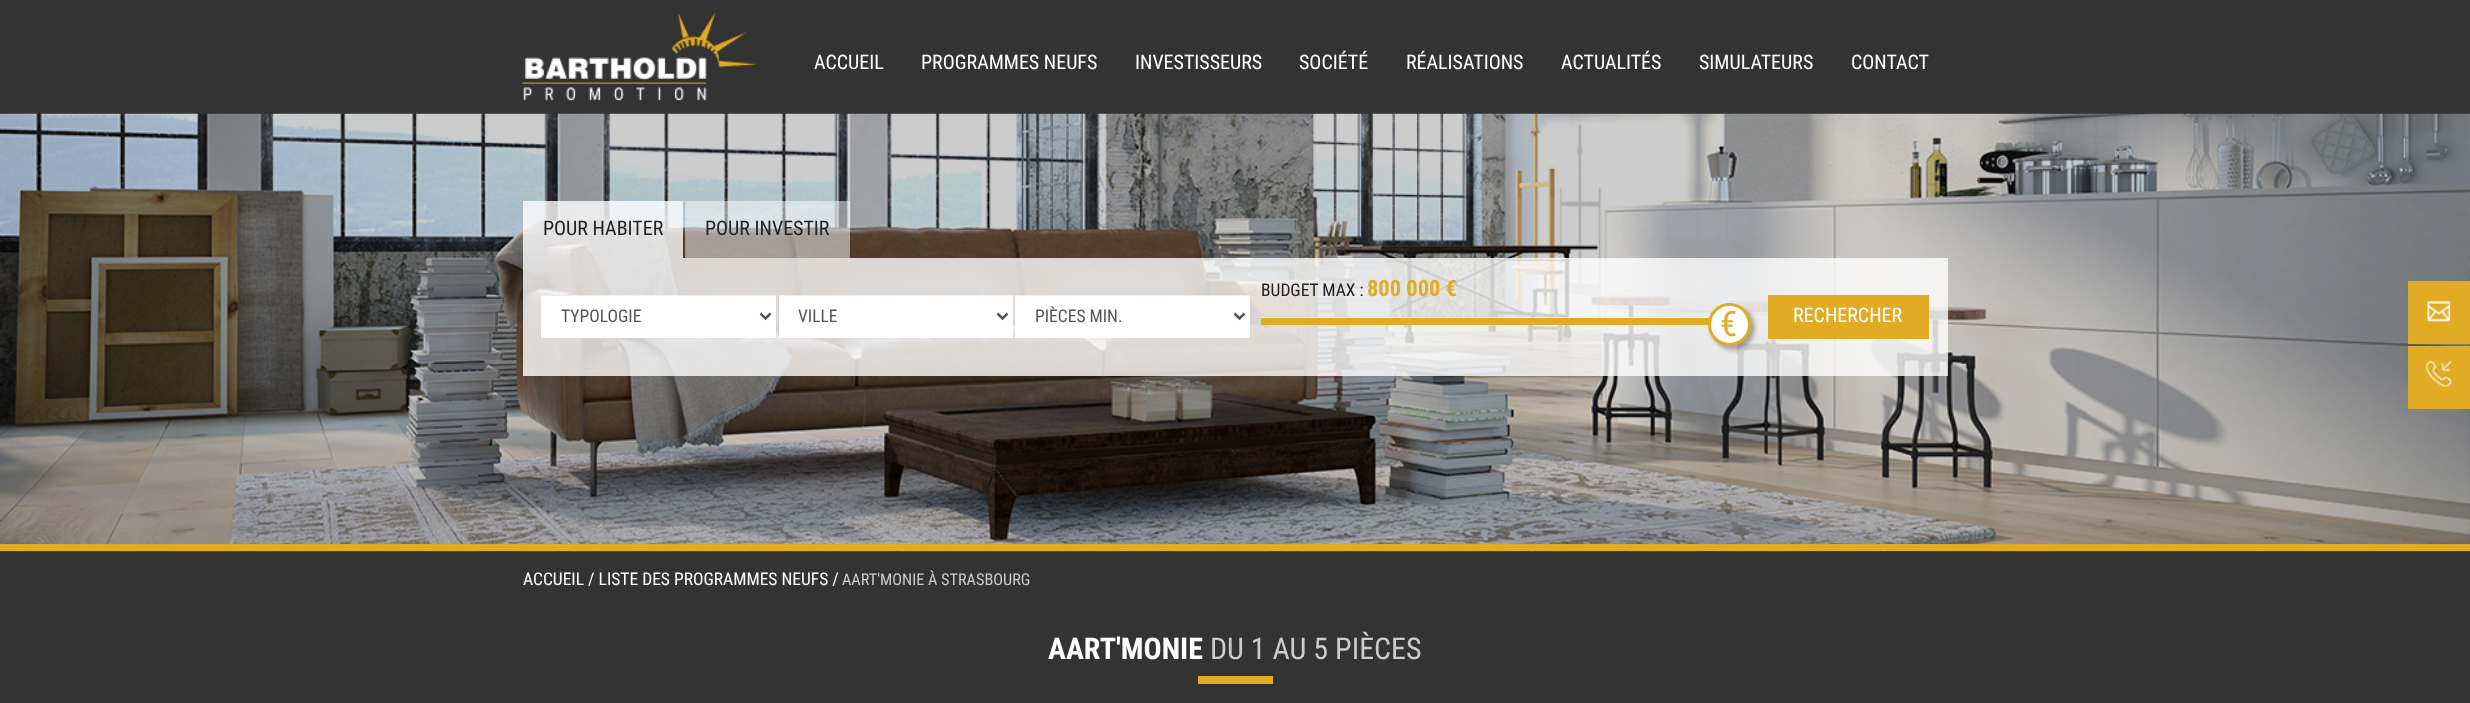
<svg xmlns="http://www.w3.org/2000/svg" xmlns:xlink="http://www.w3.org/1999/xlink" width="2470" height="703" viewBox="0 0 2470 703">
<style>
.cls-1{font:20px Roboto Condensed;fill:#ffffff}
.cls-2{font:20px Roboto Condensed;fill:#222222}
.cls-3{font:17.5px Roboto Condensed;fill:#555555}
.cls-4{font:17.5px Roboto Condensed;fill:#222222}
.cls-5{font:bold 22.5px Roboto Condensed;fill:#e2ab24}
.cls-6{font:35px Roboto Condensed;fill:#e2ab24}
.cls-7{font:17.5px Roboto Condensed;fill:#ffffff}
.cls-8{font:16.25px Roboto Condensed;fill:#cccccc}
.cls-9{font:bold 30px Roboto Condensed;fill:#ffffff}
.cls-10{font:30px Roboto Condensed;fill:#cccccc}
</style>
<rect width="100%" height="100%" fill="#333333"/>
<image xlink:href="image0.png" x="522" y="12" width="235" height="89"/>
<image xlink:href="image1.png" x="0" y="113" width="2470" height="439"/>
<rect fill="#e2ab24" x="0" y="544" width="2470" height="7"/>
<rect fill="#ffffff" fill-opacity="0.8" x="523" y="201" width="160" height="57"/>
<rect fill="#ffffff" fill-opacity="0.5" x="685" y="201" width="165" height="57"/>
<rect fill="#ffffff" fill-opacity="0.8" x="523" y="258" width="1425" height="118"/>
<rect fill="#ffffff" x="541" y="296" width="235" height="42"/>
<rect fill="#ececec" x="541" y="295" width="235" height="1"/>
<path fill="none" stroke="#555555" stroke-width="2.5" d="M760.5 313.5L765.5 318.5L770.5 313.5"/>
<rect fill="#ffffff" x="779" y="296" width="234" height="42"/>
<rect fill="#ececec" x="779" y="295" width="234" height="1"/>
<path fill="none" stroke="#555555" stroke-width="2.5" d="M997.5 313.5L1002.5 318.5L1007.5 313.5"/>
<rect fill="#ffffff" x="1015" y="296" width="235" height="42"/>
<rect fill="#ececec" x="1015" y="295" width="235" height="1"/>
<path fill="none" stroke="#555555" stroke-width="2.5" d="M1234.5 313.5L1239.5 318.5L1244.5 313.5"/>
<image xlink:href="image2.png" x="1261" y="317" width="449" height="1"/>
<rect fill="#e2ab24" x="1261" y="318" width="448" height="7"/>
<rect fill="#000000" fill-opacity="0.3" filter="blur(2px)" x="1711" y="306" width="44" height="44" rx="22"/>
<circle fill="#ffffff" stroke="#e2ab24" stroke-width="3" cx="1729.5" cy="324.5" r="20"/>
<rect fill="#e2ab24" x="1768" y="295" width="161" height="44"/>
<rect fill="#e2ab24" x="2408" y="281" width="62" height="63"/>
<image xlink:href="image3.png" x="2427" y="301" width="24" height="21"/>
<rect fill="#e2ab24" x="2408" y="346" width="62" height="63"/>
<image xlink:href="image4.png" x="2426" y="361" width="26" height="26"/>
<rect fill="#e2ab24" x="1198" y="676" width="75" height="8"/>
<text class="cls-1" x="814" y="69">ACCUEIL</text>
<text class="cls-1" x="921" y="69">PROGRAMMES NEUFS</text>
<text class="cls-1" x="1135" y="69">INVESTISSEURS</text>
<text class="cls-1" x="1299" y="69">SOCIÉTÉ</text>
<text class="cls-1" x="1406" y="69">RÉALISATIONS</text>
<text class="cls-1" x="1561" y="69">ACTUALITÉS</text>
<text class="cls-1" x="1699" y="69">SIMULATEURS</text>
<text class="cls-1" x="1851" y="69">CONTACT</text>
<text class="cls-2" x="543" y="235">POUR HABITER</text>
<text class="cls-2" x="705" y="235">POUR INVESTIR</text>
<text class="cls-3" x="561" y="322">TYPOLOGIE</text>
<text class="cls-3" x="798" y="322">VILLE</text>
<text class="cls-3" x="1035" y="322">PIÈCES MIN.</text>
<text class="cls-4" x="1261" y="296">BUDGET MAX :</text>
<text class="cls-5" x="1367" y="296">800 000 €</text>
<text class="cls-6" x="1720" y="336">€</text>
<text class="cls-1" x="1793" y="322">RECHERCHER</text>
<text class="cls-7" x="523" y="585">ACCUEIL / LISTE DES PROGRAMMES NEUFS /</text>
<text class="cls-8" x="842" y="585">AART'MONIE À STRASBOURG</text>
<text class="cls-9" x="1048" y="659">AART'MONIE</text>
<text class="cls-10" x="1210" y="659">DU 1 AU 5 PIÈCES</text>
</svg>
